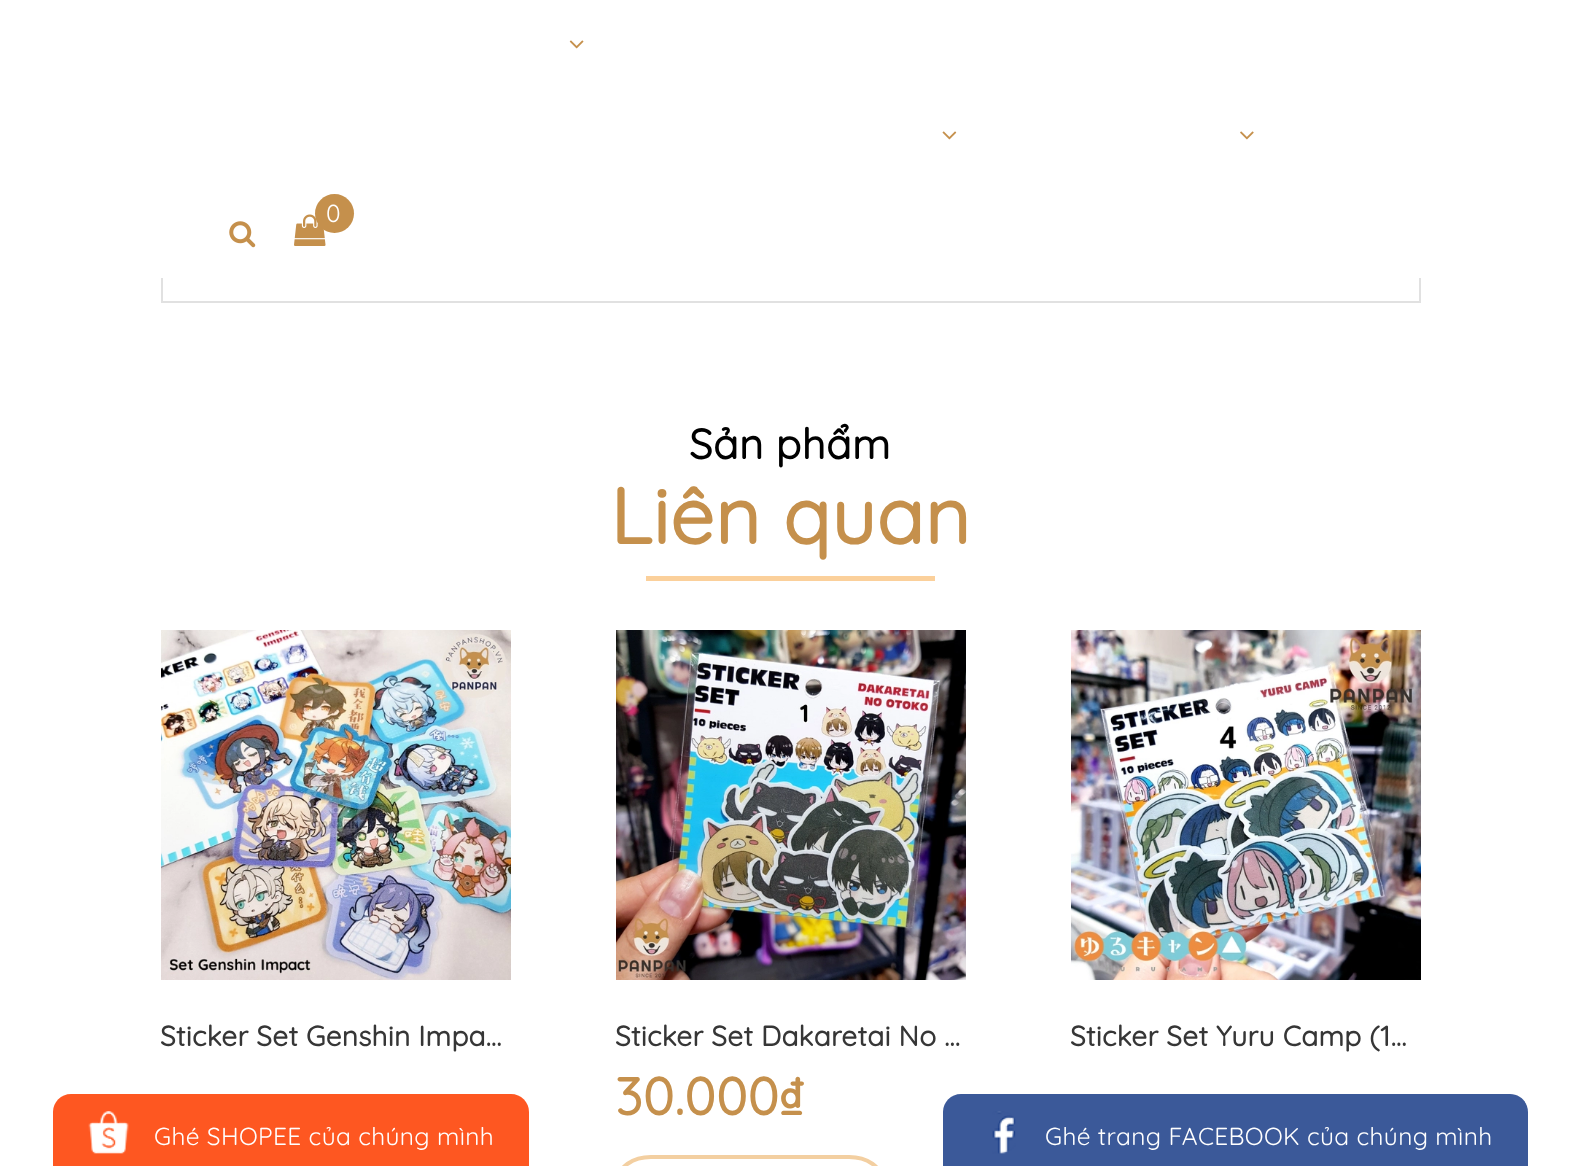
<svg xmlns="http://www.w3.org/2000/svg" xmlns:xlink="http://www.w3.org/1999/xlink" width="1580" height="1166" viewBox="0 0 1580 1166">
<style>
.cls-1{font:300 24.5px Quicksand;letter-spacing:0.35px;fill:#ffffff}
.cls-2{font:bold 42px Quicksand;letter-spacing:0.5px;fill:#000000}
.cls-3{font:bold 78.75px Quicksand;letter-spacing:0.5px;fill:#c5904c}
.cls-4{font:bold 28px Quicksand;letter-spacing:0.25px;fill:#363636}
.cls-5{font:bold 52.5px Quicksand;letter-spacing:0.35px;fill:#c5904c}
</style>
<rect width="100%" height="100%" fill="#ffffff"/>
<image xlink:href="image0.png" x="569" y="40" width="15" height="9"/>
<image xlink:href="image1.png" x="942" y="131" width="15" height="9"/>
<image xlink:href="image2.png" x="1240" y="131" width="14" height="9"/>
<image xlink:href="image3.png" x="294" y="214" width="32" height="32"/>
<circle fill="#c5904c" cx="334.5" cy="213.5" r="19.5"/>
<image xlink:href="image4.png" x="229" y="221" width="27" height="27"/>
<rect fill="#e1e1e1" x="1419" y="278" width="2" height="25"/>
<rect fill="#e1e1e1" x="161" y="301" width="1260" height="2"/>
<rect fill="#e1e1e1" x="161" y="278" width="2" height="25"/>
<rect fill="#fbd09b" x="646" y="576" width="289" height="5"/>
<image xlink:href="image5.png" x="161" y="630" width="350" height="350"/>
<image xlink:href="image6.png" x="616" y="630" width="350" height="350"/>
<rect fill="none" stroke="#f3cfa1" stroke-width="4" x="618" y="1157" width="264" height="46" rx="33"/>
<image xlink:href="image7.png" x="1071" y="630" width="350" height="350"/>
<path fill="#fe5721" d="M71 1094H511C521 1094 529 1102 529 1112V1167H53V1112C53 1102 61 1094 71 1094Z"/>
<image xlink:href="image8.png" x="88" y="1111" width="41" height="43"/>
<path fill="#3b5999" d="M961 1094H1510C1520 1094 1528 1102 1528 1112V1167H943V1112C943 1102 951 1094 961 1094Z"/>
<image xlink:href="image9.png" x="992" y="1111" width="24" height="43"/>
<text class="cls-1" x="326" y="222">0</text>
<text class="cls-2" x="689" y="459">Sản phẩm</text>
<text class="cls-3" x="610" y="544">Liên quan</text>
<text class="cls-4" x="160" y="1046">Sticker Set Genshin Impa…</text>
<text class="cls-4" x="615" y="1046">Sticker Set Dakaretai No …</text>
<text class="cls-5" x="615" y="1115">30.000₫</text>
<text class="cls-4" x="1070" y="1046">Sticker Set Yuru Camp (1…</text>
<text class="cls-1" x="154" y="1145">Ghé SHOPEE của chúng mình</text>
<text class="cls-1" x="1045" y="1145">Ghé trang FACEBOOK của chúng mình</text>
</svg>
